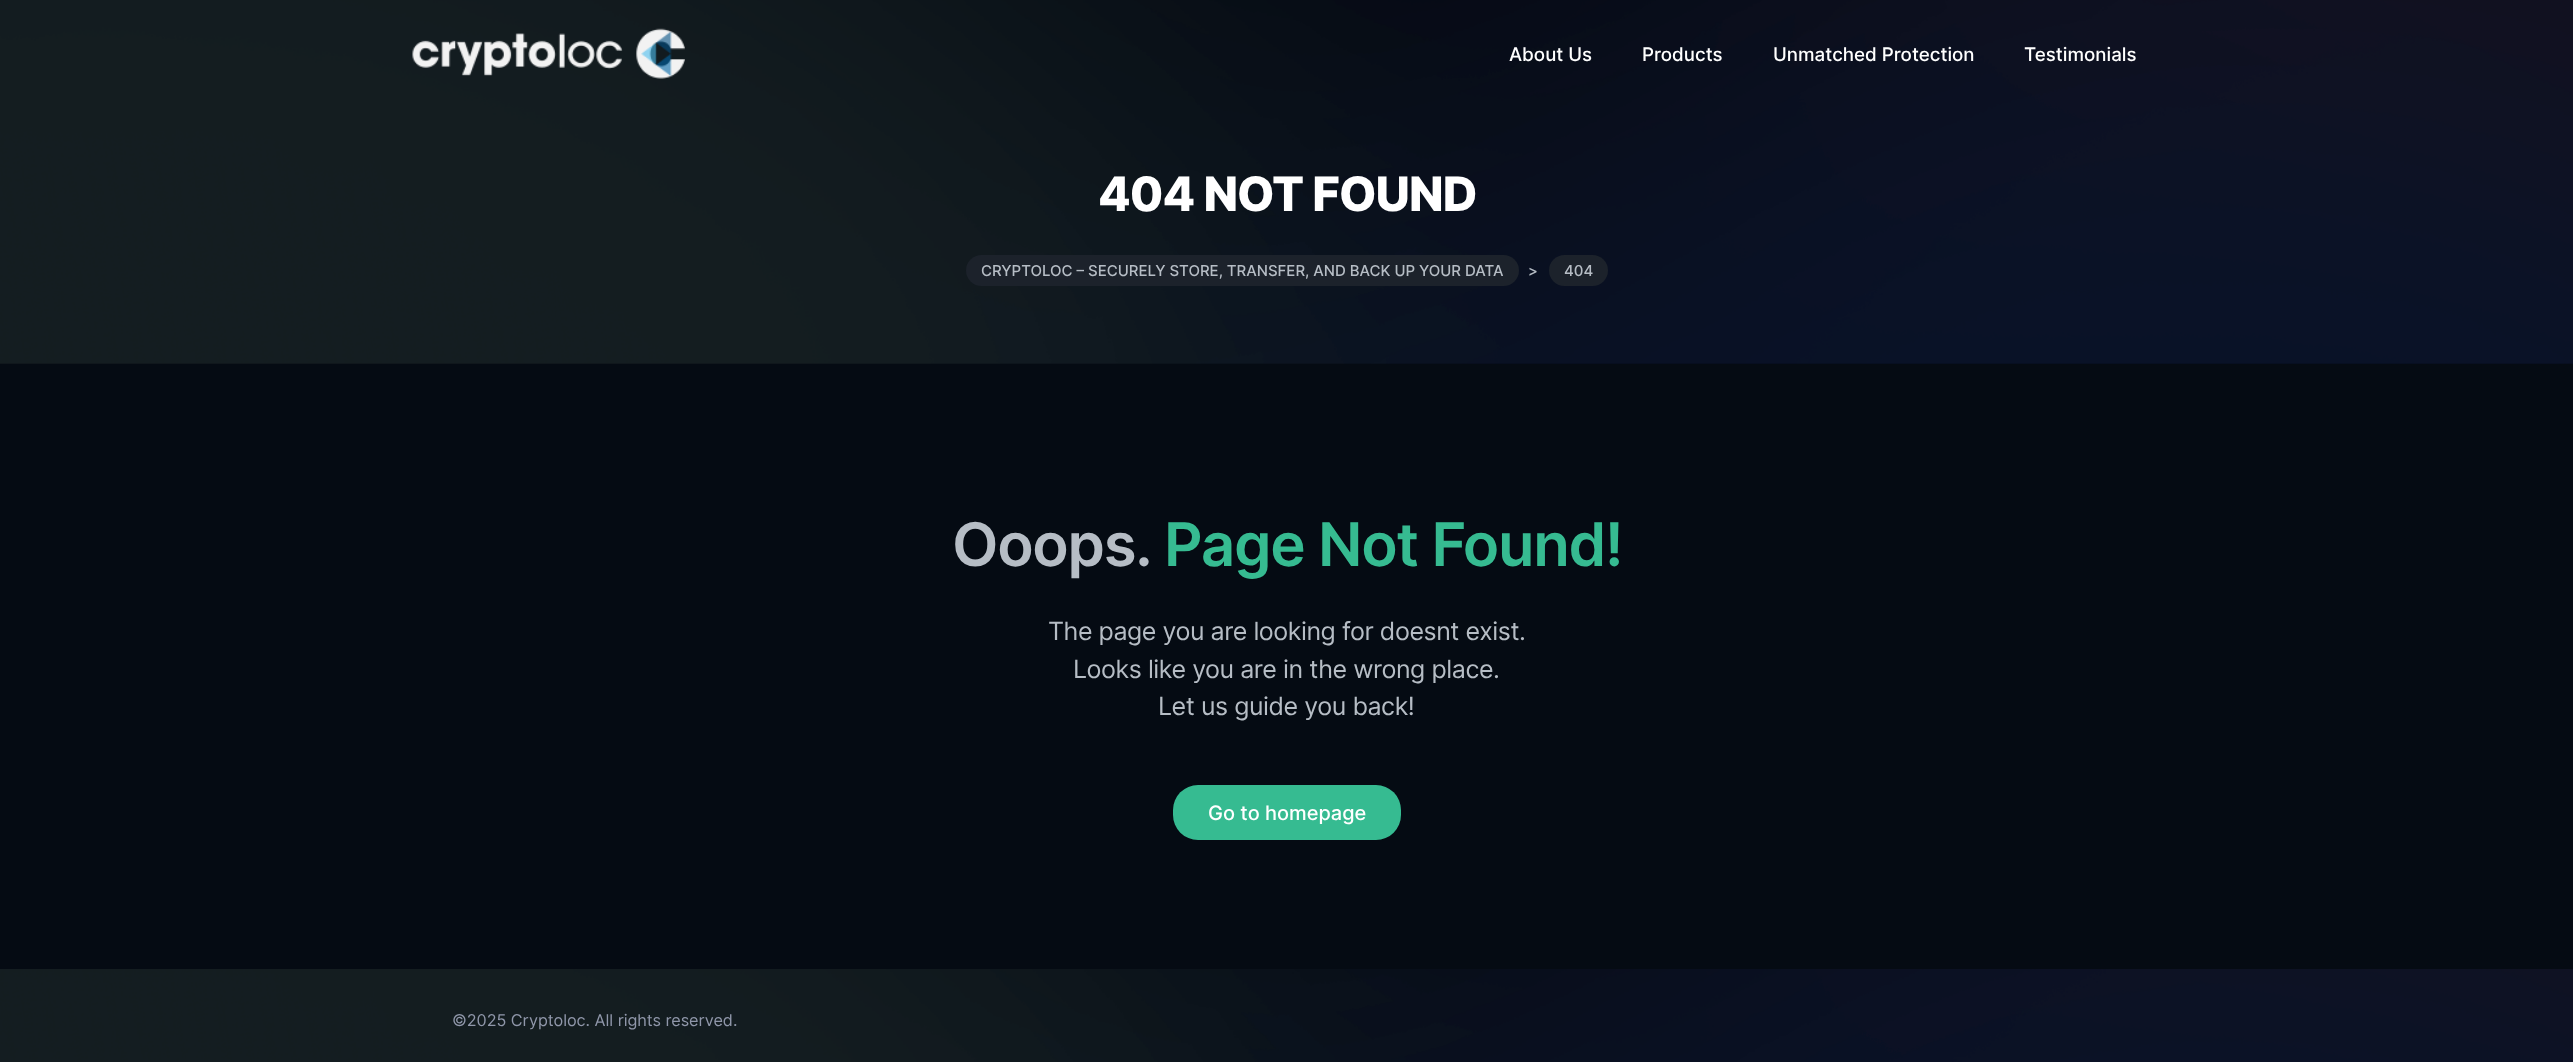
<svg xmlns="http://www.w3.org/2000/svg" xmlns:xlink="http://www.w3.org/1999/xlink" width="2573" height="1062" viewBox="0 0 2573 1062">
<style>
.cls-1{font:500 18.75px Inter;fill:#ffffff}
.cls-2{font:800 47.5px Inter;letter-spacing:-1px;fill:#ffffff}
.cls-3{font:500 15px Inter;fill:#b6bdc5}
.cls-4{font:600 60px Inter;letter-spacing:-1.3px;fill:#b6bdc5}
.cls-5{font:600 60px Inter;letter-spacing:-1.3px;fill:#36bb91}
.cls-6{font:25px Inter;letter-spacing:-0.45px;fill:#b6bdc5}
.cls-7{font:500 20px Inter;fill:#ffffff}
.cls-8{font:16.25px Inter;letter-spacing:-0.05px;fill:#9097aa}
</style>
<rect width="100%" height="100%" fill="#050b13"/>
<image xlink:href="image1.png" x="0" y="0" width="2573" height="364"/>
<image xlink:href="image0.png" x="412" y="28" width="273" height="51"/>
<rect fill="#1c222b" x="966" y="255" width="553" height="31" rx="15.5"/>
<rect fill="#1c222b" x="1549" y="255" width="59" height="31" rx="15.5"/>
<rect fill="#36bb91" x="1173" y="785" width="228" height="55" rx="25"/>
<image xlink:href="image2.png" x="0" y="969" width="2573" height="93"/>
<text class="cls-1" x="1509" y="61">About Us</text>
<text class="cls-1" x="1642" y="61">Products</text>
<text class="cls-1" x="1773" y="61">Unmatched Protection</text>
<text class="cls-1" x="2024" y="61">Testimonials</text>
<text class="cls-2" x="1098" y="211">404 NOT FOUND</text>
<text class="cls-3" x="981" y="276">CRYPTOLOC – SECURELY STORE, TRANSFER, AND BACK UP YOUR DATA</text>
<text class="cls-3" x="1528" y="276">&gt;</text>
<text class="cls-3" x="1564" y="276">404</text>
<text class="cls-4" x="952" y="566">Ooops.</text>
<text class="cls-5" x="1164" y="566">Page Not Found!</text>
<text class="cls-6" x="1048" y="640">The page you are looking for doesnt exist.</text>
<text class="cls-6" x="1073" y="678">Looks like you are in the wrong place.</text>
<text class="cls-6" x="1158" y="715">Let us guide you back!</text>
<text class="cls-7" x="1208" y="820">Go to homepage</text>
<text class="cls-8" x="452" y="1026">©2025 Cryptoloc. All rights reserved.</text>
</svg>
